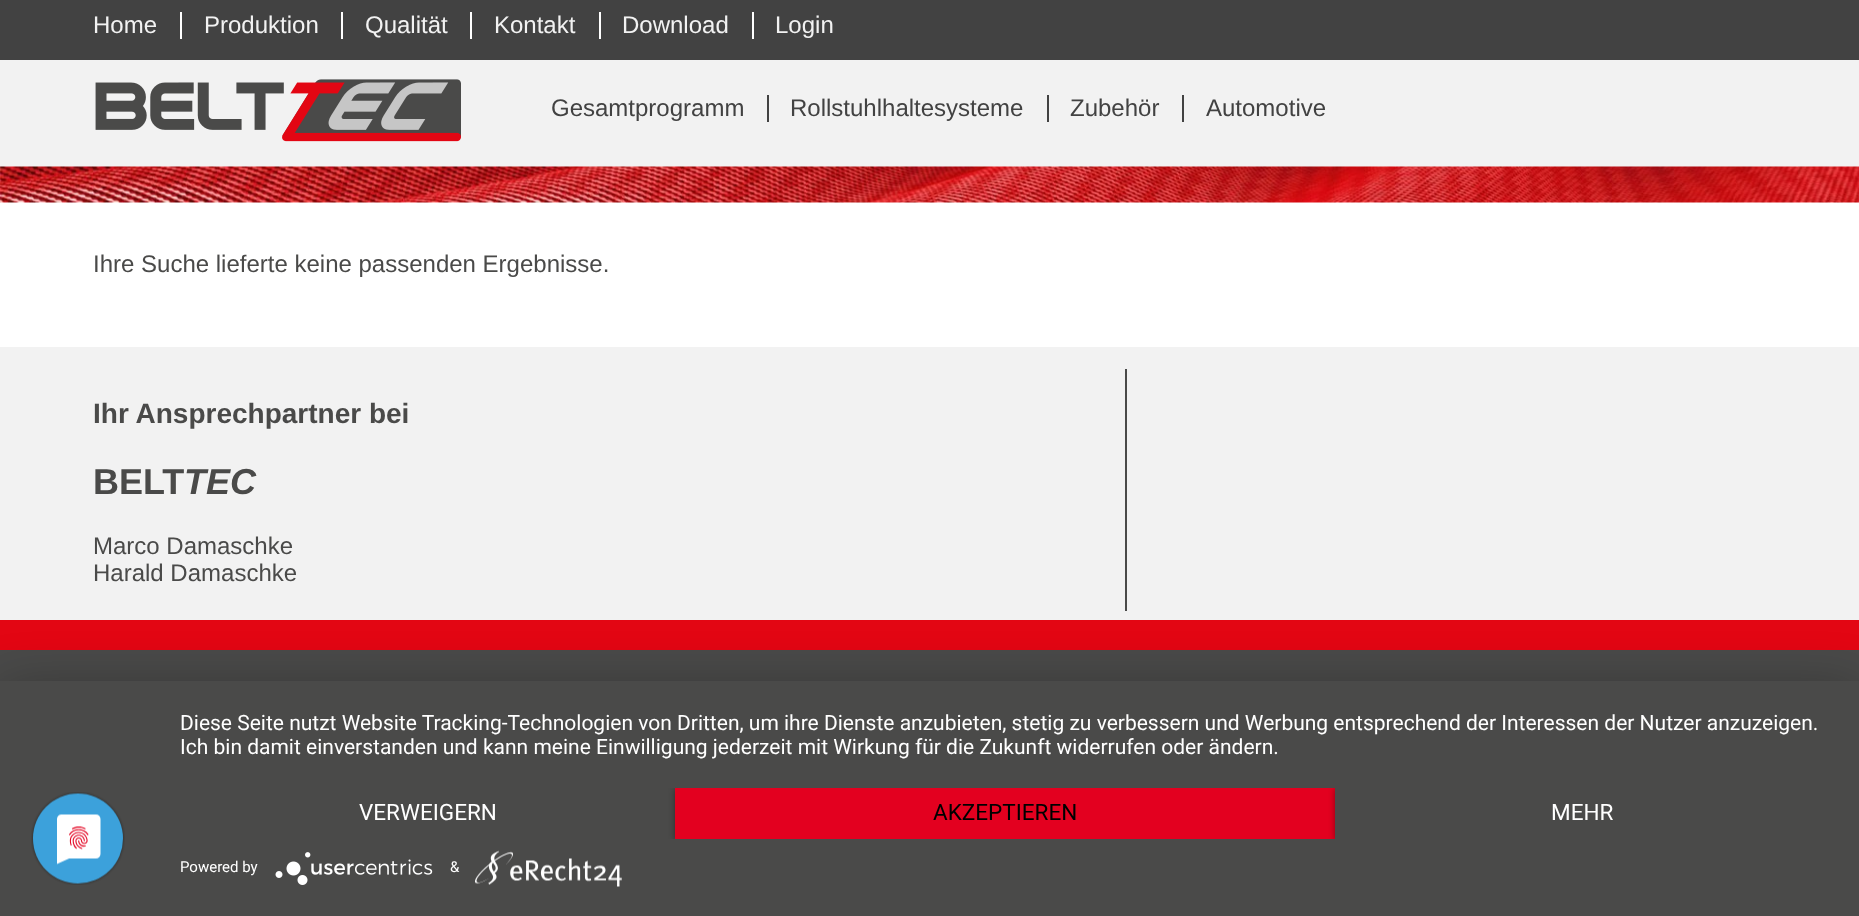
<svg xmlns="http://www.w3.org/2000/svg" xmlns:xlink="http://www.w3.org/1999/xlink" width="1859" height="916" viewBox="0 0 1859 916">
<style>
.cls-1{font:24px Liberation Sans;fill:#f2f2f2}
.cls-2{font:24px Liberation Sans;fill:#424242}
.cls-3{font:24px Liberation Sans;fill:#4a4a49}
.cls-4{font:bold 28px Liberation Sans;fill:#4a4a49}
.cls-5{font:bold 36px Liberation Sans;fill:#4a4a49}
.cls-6{font:italic bold 36px Liberation Sans;fill:#4a4a49}
.cls-7{font:21px Roboto;fill:#ffffff}
.cls-8{font:22.5px Roboto;fill:#ffffff}
.cls-9{font:22.5px Roboto;fill:#000000}
.cls-10{font:15px Roboto;fill:#ffffff}
</style>
<defs>
<clipPath id="clip1"><rect x="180" y="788" width="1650" height="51"/></clipPath>
</defs>
<rect width="100%" height="100%" fill="#ffffff"/>
<rect fill="#424242" x="0" y="0" width="1859" height="60"/>
<rect fill="#ffffff" x="180" y="12" width="2" height="27"/>
<rect fill="#ffffff" x="341" y="12" width="2" height="27"/>
<rect fill="#ffffff" x="470" y="12" width="2" height="27"/>
<rect fill="#ffffff" x="599" y="12" width="2" height="27"/>
<rect fill="#ffffff" x="752" y="12" width="2" height="27"/>
<rect fill="#f2f2f2" x="0" y="60" width="1859" height="107"/>
<image xlink:href="image0.png" x="95" y="79" width="366" height="63"/>
<rect fill="#424242" x="767" y="95" width="2" height="27"/>
<rect fill="#424242" x="1047" y="95" width="2" height="27"/>
<rect fill="#424242" x="1182" y="95" width="2" height="27"/>
<image xlink:href="image1.png" x="0" y="166" width="1859" height="37"/>
<rect fill="#f2f2f2" x="0" y="347" width="1859" height="273"/>
<rect fill="#4a4a49" x="1125" y="369" width="2" height="242"/>
<rect fill="#4a4a49" x="0" y="650" width="1859" height="31"/>
<rect fill="#e30613" x="0" y="620" width="1859" height="30"/>
<rect fill="#000000" fill-opacity="0.3" filter="blur(27px)" x="0" y="690" width="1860" height="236"/>
<rect fill="#4a4a49" x="0" y="681" width="1859" height="235"/>
<image xlink:href="image2.png" x="31" y="792" width="94" height="93"/>
<g clip-path="url(#clip1)">
<rect fill="#000000" fill-opacity="0.4" filter="blur(3px)" x="675" y="789" width="660" height="51"/>
</g>
<rect fill="#e3001f" x="675" y="788" width="660" height="51"/>
<g clip-path="url(#clip1)">
<rect fill="#000000" fill-opacity="0.4" filter="blur(3px)" x="1335" y="789" width="495" height="51"/>
</g>
<rect fill="#4a4a49" x="1335" y="788" width="495" height="51"/>
<image xlink:href="image3.png" x="275" y="852" width="158" height="33"/>
<image xlink:href="image4.png" x="475" y="850" width="147" height="37"/>
<text class="cls-1" x="93" y="33">Home</text>
<text class="cls-1" x="204" y="33">Produktion</text>
<text class="cls-1" x="365" y="33">Qualität</text>
<text class="cls-1" x="494" y="33">Kontakt</text>
<text class="cls-1" x="622" y="33">Download</text>
<text class="cls-1" x="775" y="33">Login</text>
<text class="cls-2" x="551" y="116">Gesamtprogramm</text>
<text class="cls-2" x="790" y="116">Rollstuhlhaltesysteme</text>
<text class="cls-2" x="1070" y="116">Zubehör</text>
<text class="cls-2" x="1206" y="116">Automotive</text>
<text class="cls-3" x="93" y="272">Ihre Suche lieferte keine passenden Ergebnisse.</text>
<text class="cls-4" x="93" y="423">Ihr Ansprechpartner bei</text>
<text class="cls-5" x="93" y="494">BELT</text>
<text class="cls-6" x="184" y="494">TEC</text>
<text class="cls-3"><tspan x="93" y="554">Marco Damaschke</tspan><tspan x="93" y="581">Harald Damaschke</tspan></text>
<text class="cls-7"><tspan x="180" y="730">Diese Seite nutzt Website Tracking-Technologien von Dritten, um ihre Dienste anzubieten, stetig zu verbessern und Werbung entsprechend der Interessen der Nutzer anzuzeigen.</tspan><tspan x="180" y="754">Ich bin damit einverstanden und kann meine Einwilligung jederzeit mit Wirkung für die Zukunft widerrufen oder ändern.</tspan></text>
<text class="cls-8" x="359" y="820">VERWEIGERN</text>
<text class="cls-9" x="933" y="820">AKZEPTIEREN</text>
<text class="cls-8" x="1551" y="820">MEHR</text>
<text class="cls-10" x="180" y="872">Powered by</text>
<text class="cls-10" x="450" y="872">&amp;</text>
</svg>
